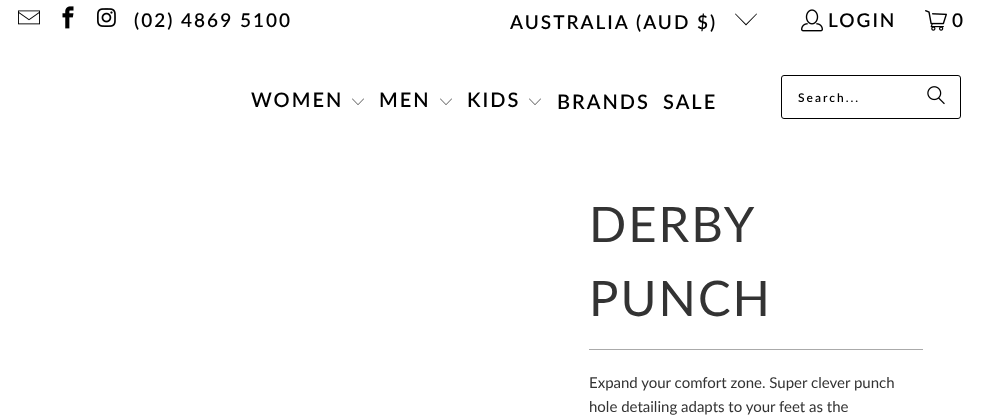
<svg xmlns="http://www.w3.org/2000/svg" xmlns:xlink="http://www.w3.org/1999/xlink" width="981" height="418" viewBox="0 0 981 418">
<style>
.cls-1{font:600 19px Lato;letter-spacing:2px;fill:#000000}
.cls-2{font:600 20px Lato;letter-spacing:2px;fill:#000000}
.cls-3{font:600 12px Lato;letter-spacing:2px;fill:#000000}
.cls-4{font:49px Lato;letter-spacing:2px;fill:#333333}
.cls-5{font:15px Lato;fill:#333333}
</style>
<rect width="100%" height="100%" fill="#ffffff"/>
<image xlink:href="image0.png" x="18" y="10" width="22" height="15"/>
<image xlink:href="image1.png" x="62" y="6" width="12" height="23"/>
<image xlink:href="image2.png" x="97" y="8" width="19" height="19"/>
<path fill="#000000" d="M746 25.5L735 14L735.5 13.5L746 24L756.5 13.5L757 14Z"/>
<image xlink:href="image3.png" x="801" y="9" width="22" height="23"/>
<image xlink:href="image4.png" x="925" y="10" width="22" height="21"/>
<image xlink:href="image5.png" x="352" y="98" width="12" height="7"/>
<image xlink:href="image5.png" x="440" y="98" width="12" height="7"/>
<image xlink:href="image5.png" x="529" y="98" width="12" height="7"/>
<rect fill="none" stroke="#000000" x="781.5" y="75.5" width="179" height="43" rx="2.5"/>
<image xlink:href="image6.png" x="927" y="86" width="18" height="19"/>
<rect fill="#aaaaaa" x="589" y="349" width="334" height="1"/>
<text class="cls-1" x="134" y="27">(02) 4869 5100</text>
<text class="cls-1" x="510" y="29">AUSTRALIA (AUD $)</text>
<text class="cls-1" x="828" y="27">LOGIN</text>
<text class="cls-1" x="952" y="27">0</text>
<text class="cls-2" x="251" y="107">WOMEN</text>
<text class="cls-2" x="379" y="107">MEN</text>
<text class="cls-2" x="467" y="107">KIDS</text>
<text class="cls-2" x="557" y="109">BRANDS</text>
<text class="cls-2" x="663" y="109">SALE</text>
<text class="cls-3" x="798" y="102">Search...</text>
<text class="cls-4"><tspan x="589" y="242">DERBY</tspan><tspan x="589" y="316">PUNCH</tspan></text>
<text class="cls-5"><tspan x="589" y="388">Expand your comfort zone. Super clever punch</tspan><tspan x="589" y="412">hole detailing adapts to your feet as the</tspan></text>
</svg>
